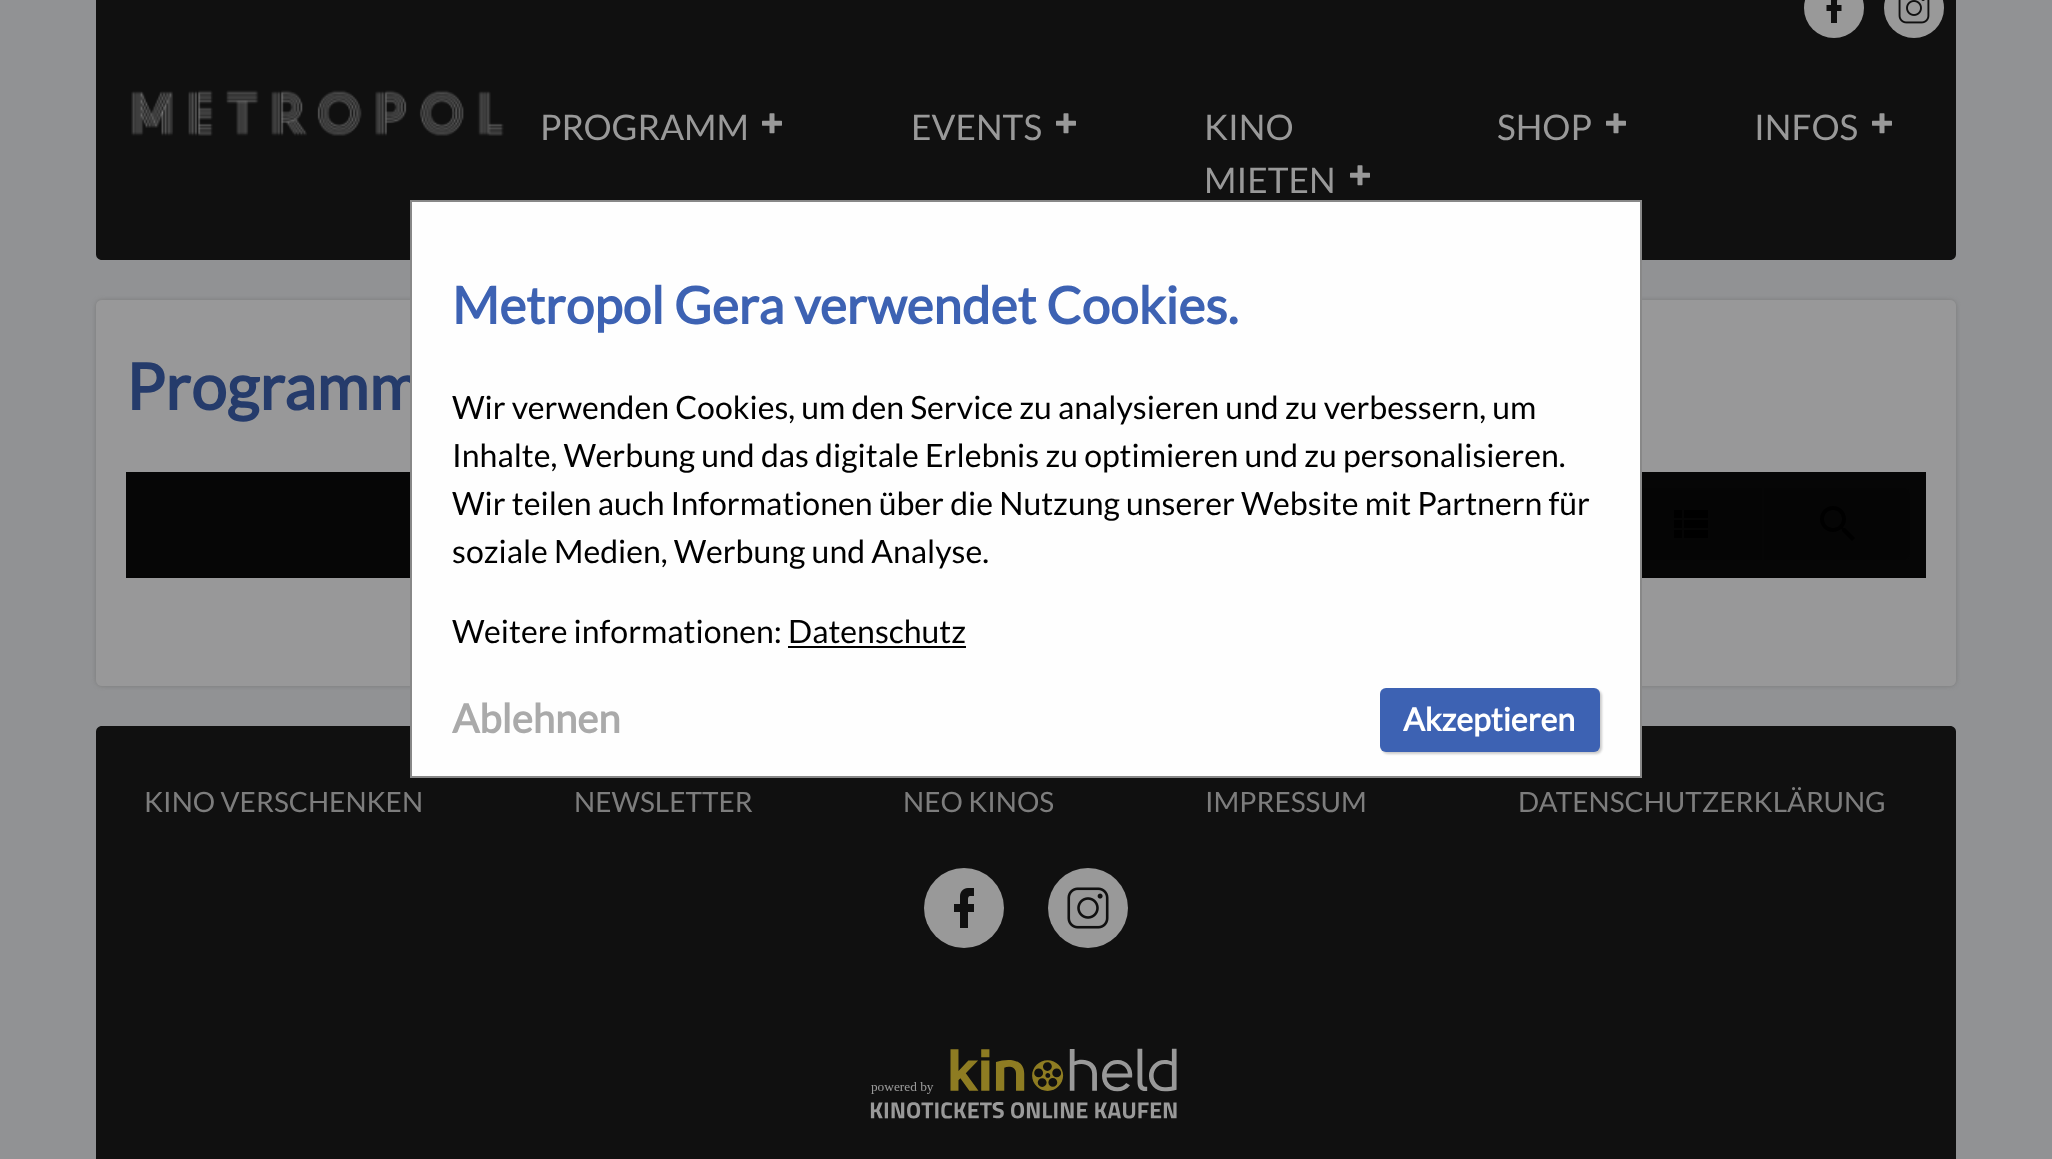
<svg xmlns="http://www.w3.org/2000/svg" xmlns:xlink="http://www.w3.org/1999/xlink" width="2052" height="1159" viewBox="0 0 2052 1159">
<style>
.cls-1{font:35.25px Lato;fill:#999999}
.cls-2{font:bold 64px Lato;fill:#253b6b}
.cls-3{font:bold 51.25px Lato;fill:#3d62b3}
.cls-4{font:32px Lato;fill:#000000}
.cls-5{font:bold 40px Lato;fill:#aaaaaa}
.cls-6{font:bold 32px Lato;fill:#ffffff}
.cls-7{font:28px Lato;fill:#7d7d7d}
</style>
<defs>
<clipPath id="clip1"><path d="M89 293H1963V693H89ZM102 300H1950C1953.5 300 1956 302.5 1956 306V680C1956 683.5 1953.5 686 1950 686H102C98.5 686 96 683.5 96 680V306C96 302.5 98.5 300 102 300Z" clip-rule="evenodd"/></clipPath>
</defs>
<rect width="100%" height="100%" fill="#919294"/>
<path fill="#101010" d="M96-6H1956V254C1956 257.5 1953.5 260 1950 260H102C98.5 260 96 257.5 96 254Z"/>
<circle fill="#999999" cx="1834" cy="8" r="30"/>
<image xlink:href="image0.png" x="1826" y="0" width="16" height="23"/>
<circle fill="#999999" cx="1914" cy="8" r="30"/>
<image xlink:href="image1.png" x="1898" y="0" width="32" height="24"/>
<image xlink:href="image2.png" x="131" y="90" width="373" height="46"/>
<image xlink:href="image3.png" x="762" y="113" width="20" height="21"/>
<image xlink:href="image3.png" x="1056" y="113" width="20" height="21"/>
<image xlink:href="image3.png" x="1350" y="165" width="20" height="21"/>
<image xlink:href="image3.png" x="1606" y="113" width="20" height="21"/>
<image xlink:href="image3.png" x="1872" y="113" width="20" height="21"/>
<g clip-path="url(#clip1)">
<rect fill="#7a7a7a" filter="blur(2px)" x="96" y="300" width="1860" height="386" rx="6"/>
</g>
<rect fill="#999999" fill-opacity="0.9" x="96" y="300" width="1860" height="386" rx="6"/>
<image xlink:href="image4.png" x="126" y="472" width="1800" height="106"/>
<path fill="#101010" d="M102 726H1950C1953.5 726 1956 728.5 1956 732V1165H96V732C96 728.5 98.5 726 102 726Z"/>
<circle fill="#999999" cx="964" cy="908" r="40"/>
<image xlink:href="image5.png" x="954" y="888" width="20" height="40"/>
<circle fill="#999999" cx="1088" cy="908" r="40"/>
<image xlink:href="image6.png" x="1067" y="887" width="42" height="42"/>
<image xlink:href="image7.png" x="870" y="1048" width="307" height="71"/>
<text class="cls-1" x="540" y="140">PROGRAMM</text>
<text class="cls-1" x="911" y="140">EVENTS</text>
<text class="cls-1"><tspan x="1204" y="140">KINO</tspan><tspan x="1204" y="193">MIETEN</tspan></text>
<text class="cls-1" x="1497" y="140">SHOP</text>
<text class="cls-1" x="1754" y="140">INFOS</text>
<text class="cls-2" x="126" y="410">Programm</text>
<rect fill="#fefefe" stroke="#888888" stroke-width="2" x="411" y="201" width="1230" height="576"/>
<text class="cls-3" x="452" y="324">Metropol Gera verwendet Cookies.</text>
<text class="cls-4"><tspan x="452" y="419">Wir verwenden Cookies, um den Service zu analysieren und zu verbessern, um</tspan><tspan x="452" y="467">Inhalte, Werbung und das digitale Erlebnis zu optimieren und zu personalisieren.</tspan><tspan x="452" y="515">Wir teilen auch Informationen über die Nutzung unserer Website mit Partnern für</tspan><tspan x="452" y="563">soziale Medien, Werbung und Analyse.</tspan></text>
<text class="cls-4" x="452" y="643">Weitere informationen: Datenschutz</text>
<rect fill="#000000" x="788" y="646" width="178" height="2"/>
<text class="cls-5" x="452" y="733">Ablehnen</text>
<rect fill="#000000" fill-opacity="0.2" filter="blur(1px)" x="1382" y="690" width="220" height="64" rx="6"/>
<rect fill="#3d62b3" x="1380" y="688" width="220" height="64" rx="6"/>
<text class="cls-6" x="1403" y="731">Akzeptieren</text>
<text class="cls-7" x="144" y="812">KINO VERSCHENKEN</text>
<text class="cls-7" x="574" y="812">NEWSLETTER</text>
<text class="cls-7" x="903" y="812">NEO KINOS</text>
<text class="cls-7" x="1205" y="812">IMPRESSUM</text>
<text class="cls-7" x="1518" y="812">DATENSCHUTZERKLÄRUNG</text>
</svg>
